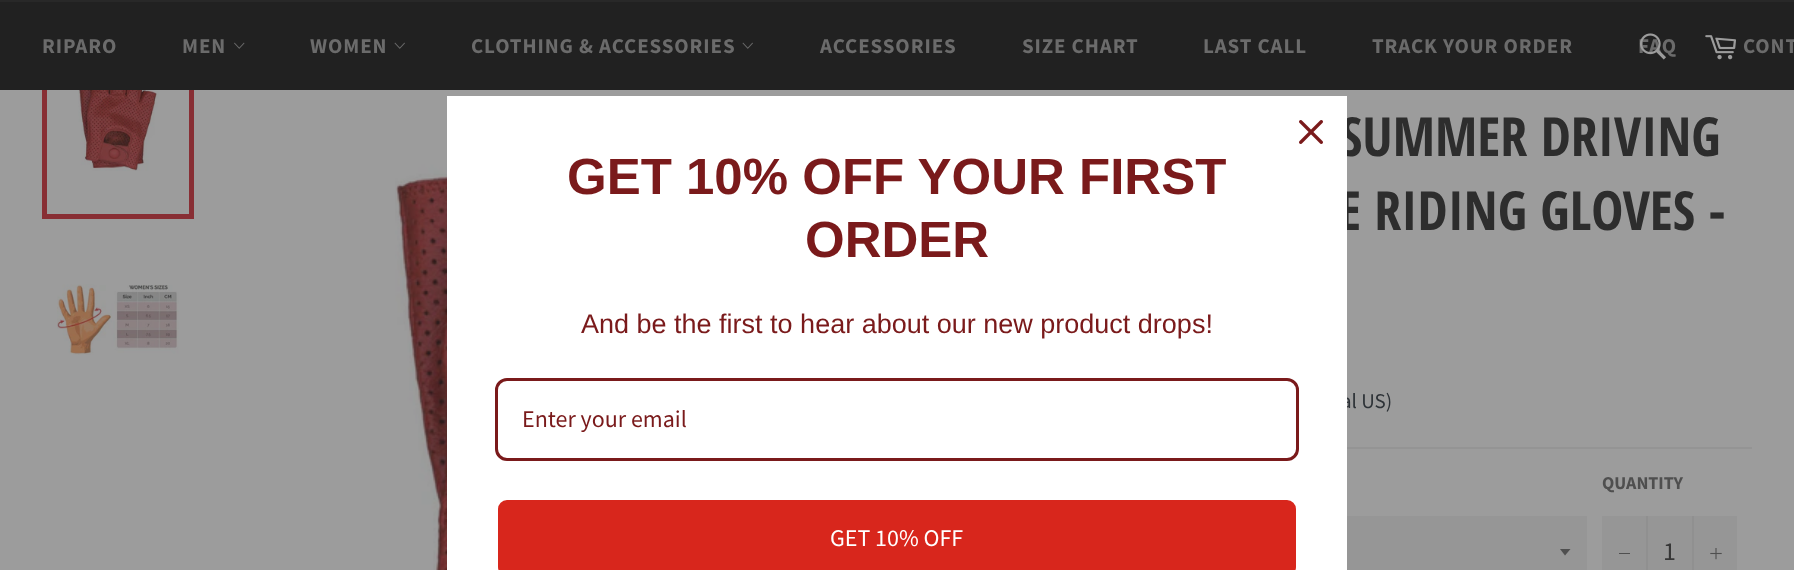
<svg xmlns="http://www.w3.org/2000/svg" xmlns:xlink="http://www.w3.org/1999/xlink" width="1794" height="570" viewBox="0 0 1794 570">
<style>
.cls-1{font:bold 21px Source Sans Pro;letter-spacing:0.9px;fill:#6b6b6b}
.cls-2{font:bold 54px Open Sans Condensed;fill:#2d2d2d}
.cls-3{font:21px Source Sans Pro;fill:#2d3237}
.cls-4{font:24px 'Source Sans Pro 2';fill:#ffffff}
.cls-5{font:24px 'Source Sans Pro 2';fill:#7a1a1b}
.cls-6{font:27px Liberation Sans;fill:#7a1a1b}
.cls-7{font:bold 51px Liberation Sans;fill:#7a1a1b}
.cls-8{font:bold 18px Source Sans Pro;fill:#4f4f4f}
.cls-9{font:26px Source Sans Pro;fill:#363636}
</style>
<rect width="100%" height="100%" fill="#9c9c9c"/>
<image xlink:href="image5.png" x="78" y="90" width="81" height="81"/>
<rect fill="none" stroke="#882e34" stroke-width="5" x="44.5" y="26.5" width="147" height="190"/>
<rect fill="#212121" x="0" y="2" width="1794" height="88"/>
<rect fill="#282828" x="0" y="0" width="1794" height="2"/>
<image xlink:href="image1.png" x="1705" y="35" width="31" height="25"/>
<image xlink:href="image2.png" x="234" y="42" width="11" height="7"/>
<image xlink:href="image3.png" x="394" y="42" width="11" height="7"/>
<image xlink:href="image3.png" x="742" y="42" width="11" height="7"/>
<image xlink:href="image6.png" x="57" y="284" width="122" height="71"/>
<image xlink:href="image7.png" x="395" y="102" width="52" height="468"/>
<rect fill="#949494" x="1347" y="447" width="405" height="2"/>
<rect fill="#969696" x="1347" y="516" width="240" height="54"/>
<path fill="#4f4f4f" d="M1560 549L1565 555.5L1570.5 549Z"/>
<rect fill="#969696" x="1602" y="516" width="135" height="54"/>
<rect fill="#909090" x="1646" y="516" width="2" height="54"/>
<rect fill="#4f4f4f" x="1619" y="553" width="11" height="1"/>
<rect fill="#909090" x="1692" y="516" width="2" height="54"/>
<image xlink:href="image8.png" x="1710" y="548" width="12" height="12"/>
<text class="cls-1" x="42" y="53">RIPARO</text>
<text class="cls-1" x="182" y="53">MEN</text>
<text class="cls-1" x="310" y="53">WOMEN</text>
<text class="cls-1" x="471" y="53">CLOTHING &amp; ACCESSORIES</text>
<text class="cls-1" x="820" y="53">ACCESSORIES</text>
<text class="cls-1" x="1022" y="53">SIZE CHART</text>
<text class="cls-1" x="1203" y="53">LAST CALL</text>
<text class="cls-1" x="1372" y="53">TRACK YOUR ORDER</text>
<text class="cls-1" x="1638" y="53">FAQ</text>
<image xlink:href="image0.png" x="1639" y="33" width="27" height="27"/>
<text class="cls-1" x="1743" y="53">CONT</text>
<text class="cls-2" x="1340" y="156">SUMMER DRIVING</text>
<text class="cls-2" x="1338" y="230">E RIDING GLOVES -</text>
<text class="cls-3" x="1341" y="408">al US)</text>
<rect fill="#ffffff" x="447" y="96" width="900" height="474"/>
<image xlink:href="image4.png" x="1299" y="120" width="24" height="24"/>
<rect fill="#d8261c" stroke="#ffffff" stroke-width="3" x="496.5" y="498.5" width="801" height="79" rx="10.5"/>
<text class="cls-4" x="830" y="546">GET 10% OFF</text>
<rect fill="none" stroke="#7a1a1b" stroke-width="3" x="496.5" y="379.5" width="801" height="80" rx="10.5"/>
<text class="cls-5" x="522" y="427">Enter your email</text>
<text class="cls-6" x="581" y="333">And be the first to hear about our new product drops!</text>
<text class="cls-7" x="805" y="257">ORDER</text>
<text class="cls-7" x="567" y="194">GET 10% OFF YOUR FIRST</text>
<text class="cls-8" x="1602" y="489">QUANTITY</text>
<text class="cls-9" x="1663" y="560">1</text>
</svg>
